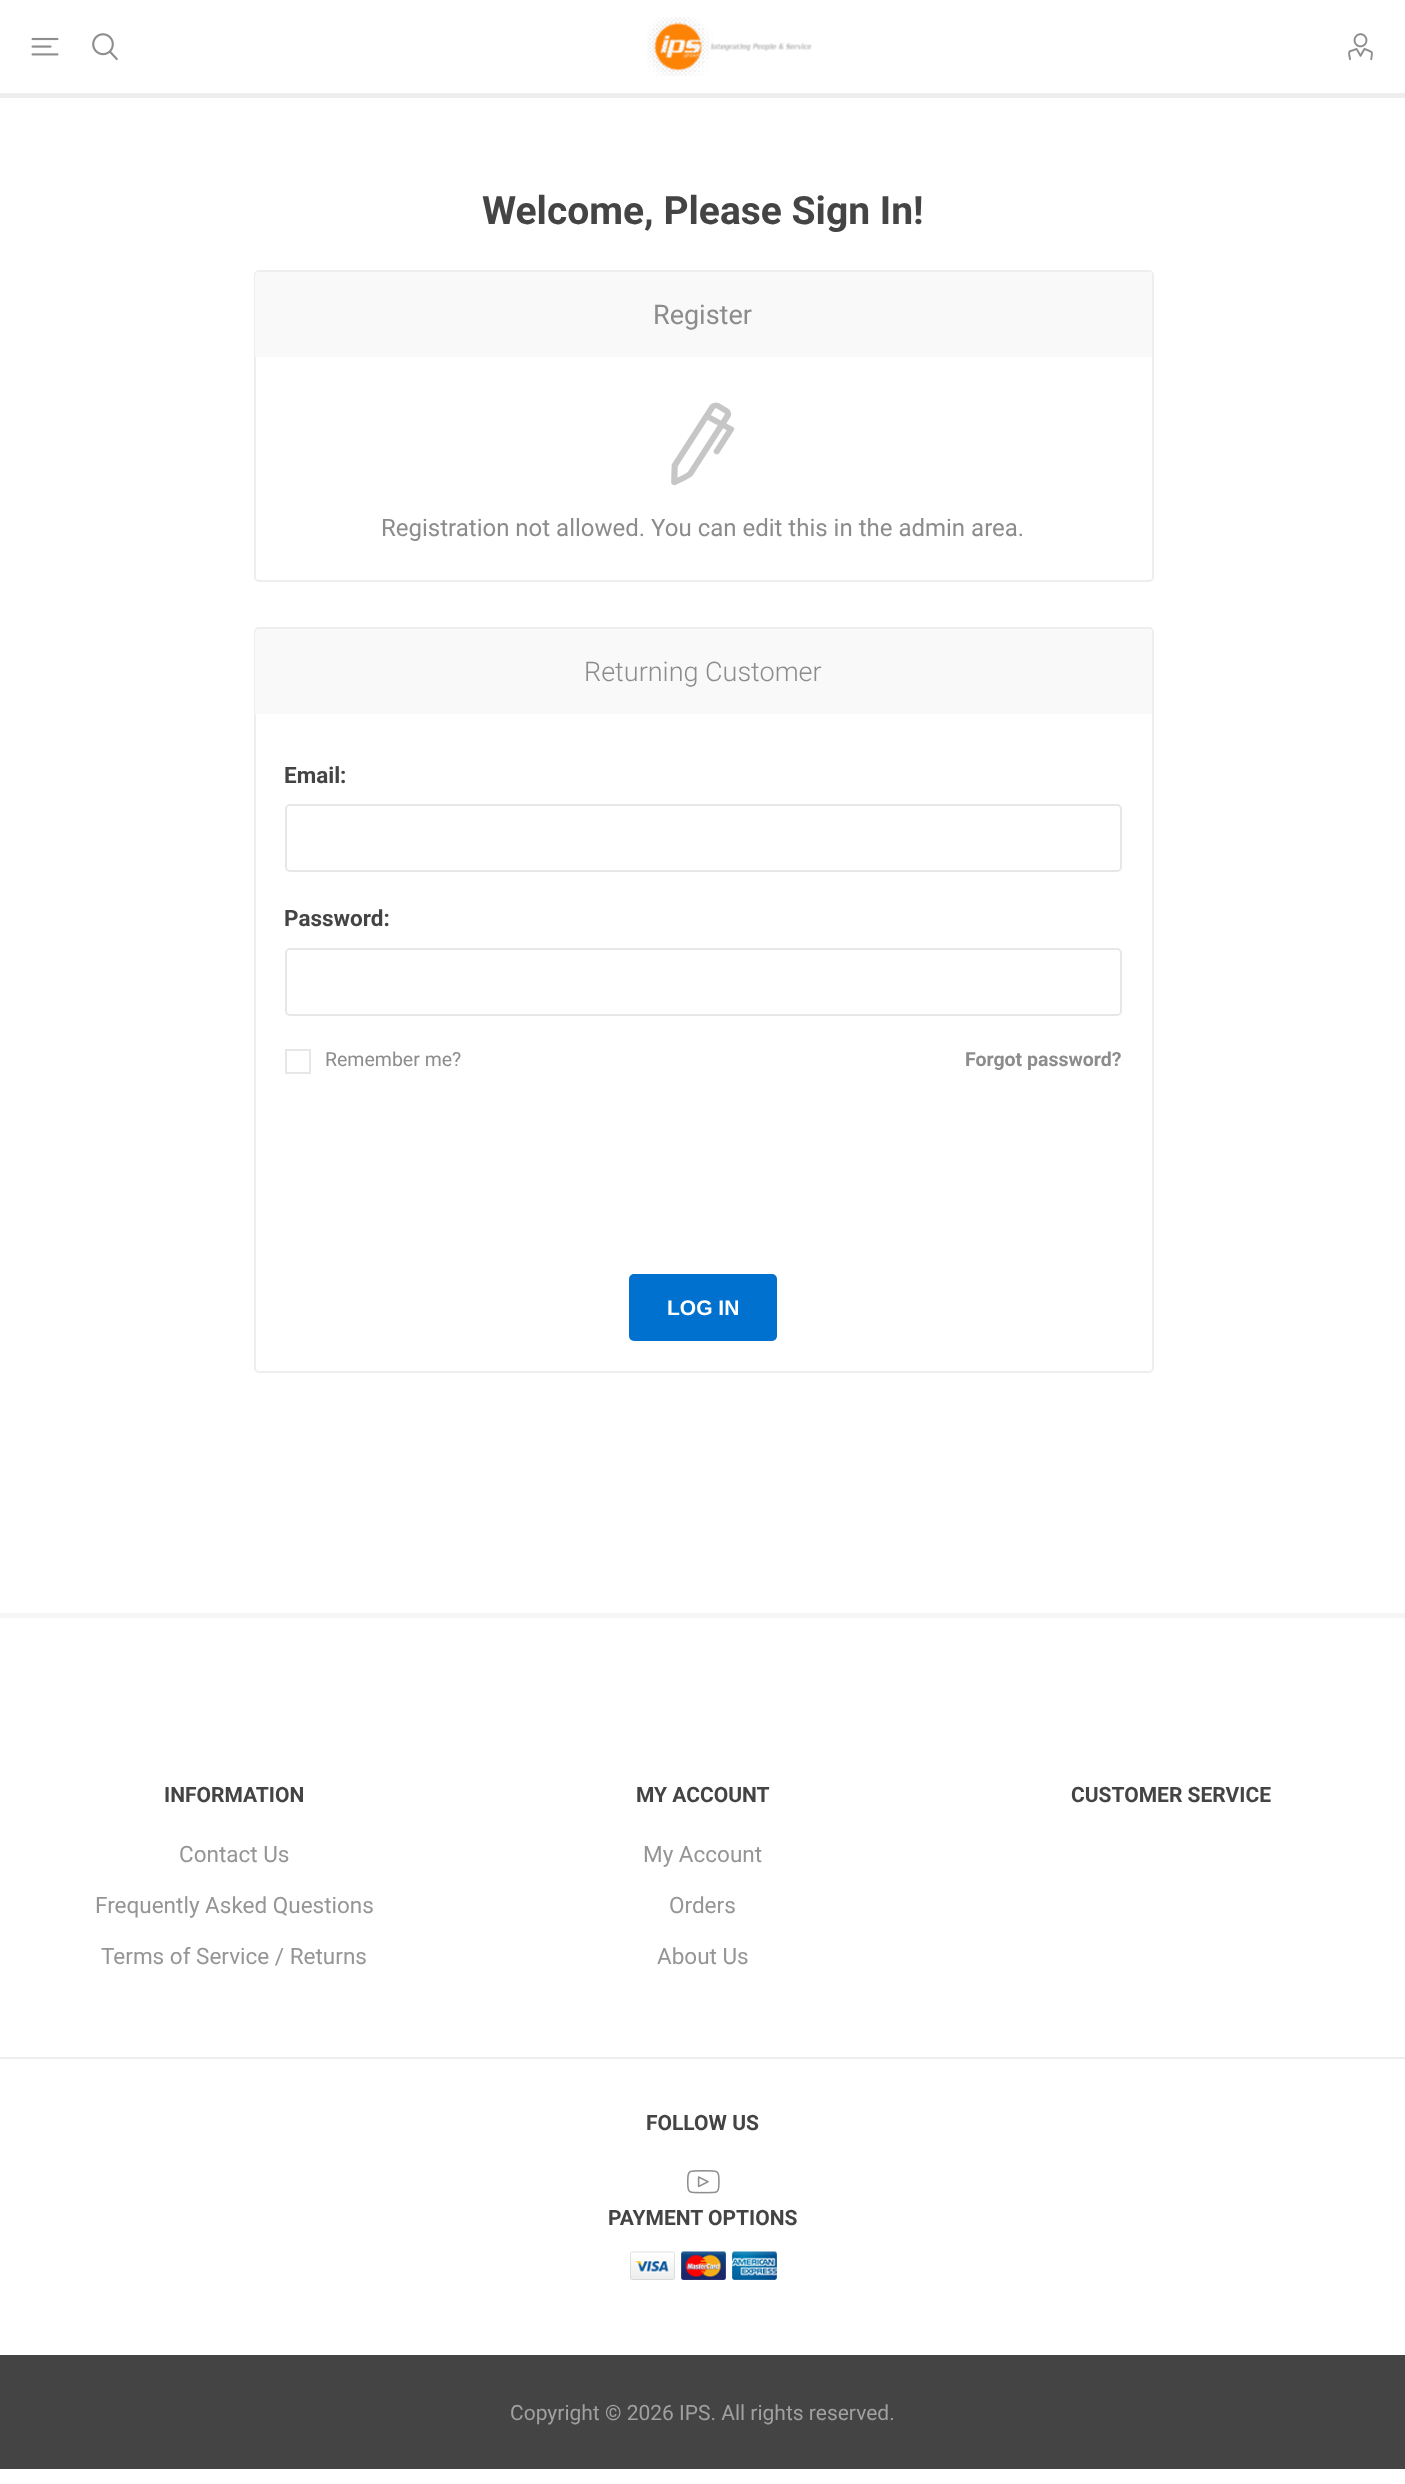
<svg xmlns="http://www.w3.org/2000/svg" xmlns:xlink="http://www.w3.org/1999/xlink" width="1405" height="2484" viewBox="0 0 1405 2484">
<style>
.cls-1{font:bold 39px Roboto;fill:#444444}
.cls-2{font:27px Roboto;fill:#8c8c8c}
.cls-3{font:24px Roboto;fill:#8c8c8c}
.cls-4{font:300 27px Roboto;fill:#8c8c8c}
.cls-5{font:bold 22.5px Roboto;fill:#444444}
.cls-6{font:19.5px Roboto;fill:#8c8c8c}
.cls-7{font:bold 19.5px Roboto;fill:#8c8c8c}
.cls-8{font:bold 21px Liberation Sans;fill:#ffffff}
.cls-9{font:bold 21px Roboto;fill:#444444}
.cls-10{font:22.5px Roboto;fill:#959595}
.cls-11{font:21px Roboto;fill:#a0a0a0}
</style>
<rect width="100%" height="100%" fill="#ffffff"/>
<rect fill="#eeeeee" x="0" y="93" width="1405" height="5"/>
<image xlink:href="image0.png" x="31" y="37" width="28" height="19"/>
<image xlink:href="image1.png" x="92" y="33" width="26" height="28"/>
<image xlink:href="image2.png" x="647" y="17" width="165" height="59"/>
<image xlink:href="image3.png" x="1348" y="33" width="25" height="28"/>
<rect fill="none" stroke="#eeeeee" stroke-width="2" x="255" y="271" width="898" height="310" rx="4"/>
<path fill="#f9f9f9" d="M260 272H1147C1150 272 1152 274 1152 277V357H255V277C255 274 257 272 260 272Z"/>
<image xlink:href="image4.png" x="671" y="402" width="64" height="84"/>
<rect fill="none" stroke="#eeeeee" stroke-width="2" x="255" y="628" width="898" height="744" rx="4"/>
<path fill="#f9f9f9" d="M260 629H1147C1150 629 1152 631 1152 634V714H255V634C255 631 257 629 260 629Z"/>
<rect fill="none" stroke="#e7e7e7" stroke-width="2" x="286" y="805" width="835" height="66" rx="4"/>
<rect fill="none" stroke="#e7e7e7" stroke-width="2" x="286" y="949" width="835" height="66" rx="4"/>
<rect fill="none" stroke="#e7e7e7" stroke-width="2" x="286" y="1050" width="24" height="23"/>
<rect fill="#0071ce" x="629" y="1274" width="148" height="67" rx="5"/>
<rect fill="#f6f6f6" x="0" y="1613" width="1405" height="5"/>
<rect fill="#eeeeee" x="0" y="2057" width="1405" height="2"/>
<image xlink:href="image5.png" x="687" y="2170" width="33" height="24"/>
<image xlink:href="image6.png" x="630" y="2251" width="45" height="29"/>
<image xlink:href="image7.png" x="681" y="2251" width="45" height="29"/>
<image xlink:href="image8.png" x="732" y="2251" width="45" height="29"/>
<rect fill="#444444" x="0" y="2355" width="1405" height="114"/>
<text class="cls-1" x="482" y="224">Welcome, Please Sign In!</text>
<text class="cls-2" x="653" y="324">Register</text>
<text class="cls-3" x="381" y="536">Registration not allowed. You can edit this in the admin area.</text>
<text class="cls-4" x="584" y="681">Returning Customer</text>
<text class="cls-5" x="284" y="783">Email:</text>
<text class="cls-5" x="284" y="926">Password:</text>
<text class="cls-6" x="325" y="1066">Remember me?</text>
<text class="cls-7" x="965" y="1066">Forgot password?</text>
<text class="cls-8" x="667" y="1315">LOG IN</text>
<text class="cls-9" x="164" y="1802">INFORMATION</text>
<text class="cls-10" x="179" y="1862">Contact Us</text>
<text class="cls-10" x="95" y="1913">Frequently Asked Questions</text>
<text class="cls-10" x="101" y="1964">Terms of Service / Returns</text>
<text class="cls-9" x="636" y="1802">MY ACCOUNT</text>
<text class="cls-10" x="643" y="1862">My Account</text>
<text class="cls-10" x="669" y="1913">Orders</text>
<text class="cls-10" x="657" y="1964">About Us</text>
<text class="cls-9" x="1071" y="1802">CUSTOMER SERVICE</text>
<text class="cls-9" x="646" y="2130">FOLLOW US</text>
<text class="cls-9" x="608" y="2225">PAYMENT OPTIONS</text>
<text class="cls-11" x="510" y="2420">Copyright © 2026 IPS. All rights reserved.</text>
</svg>
